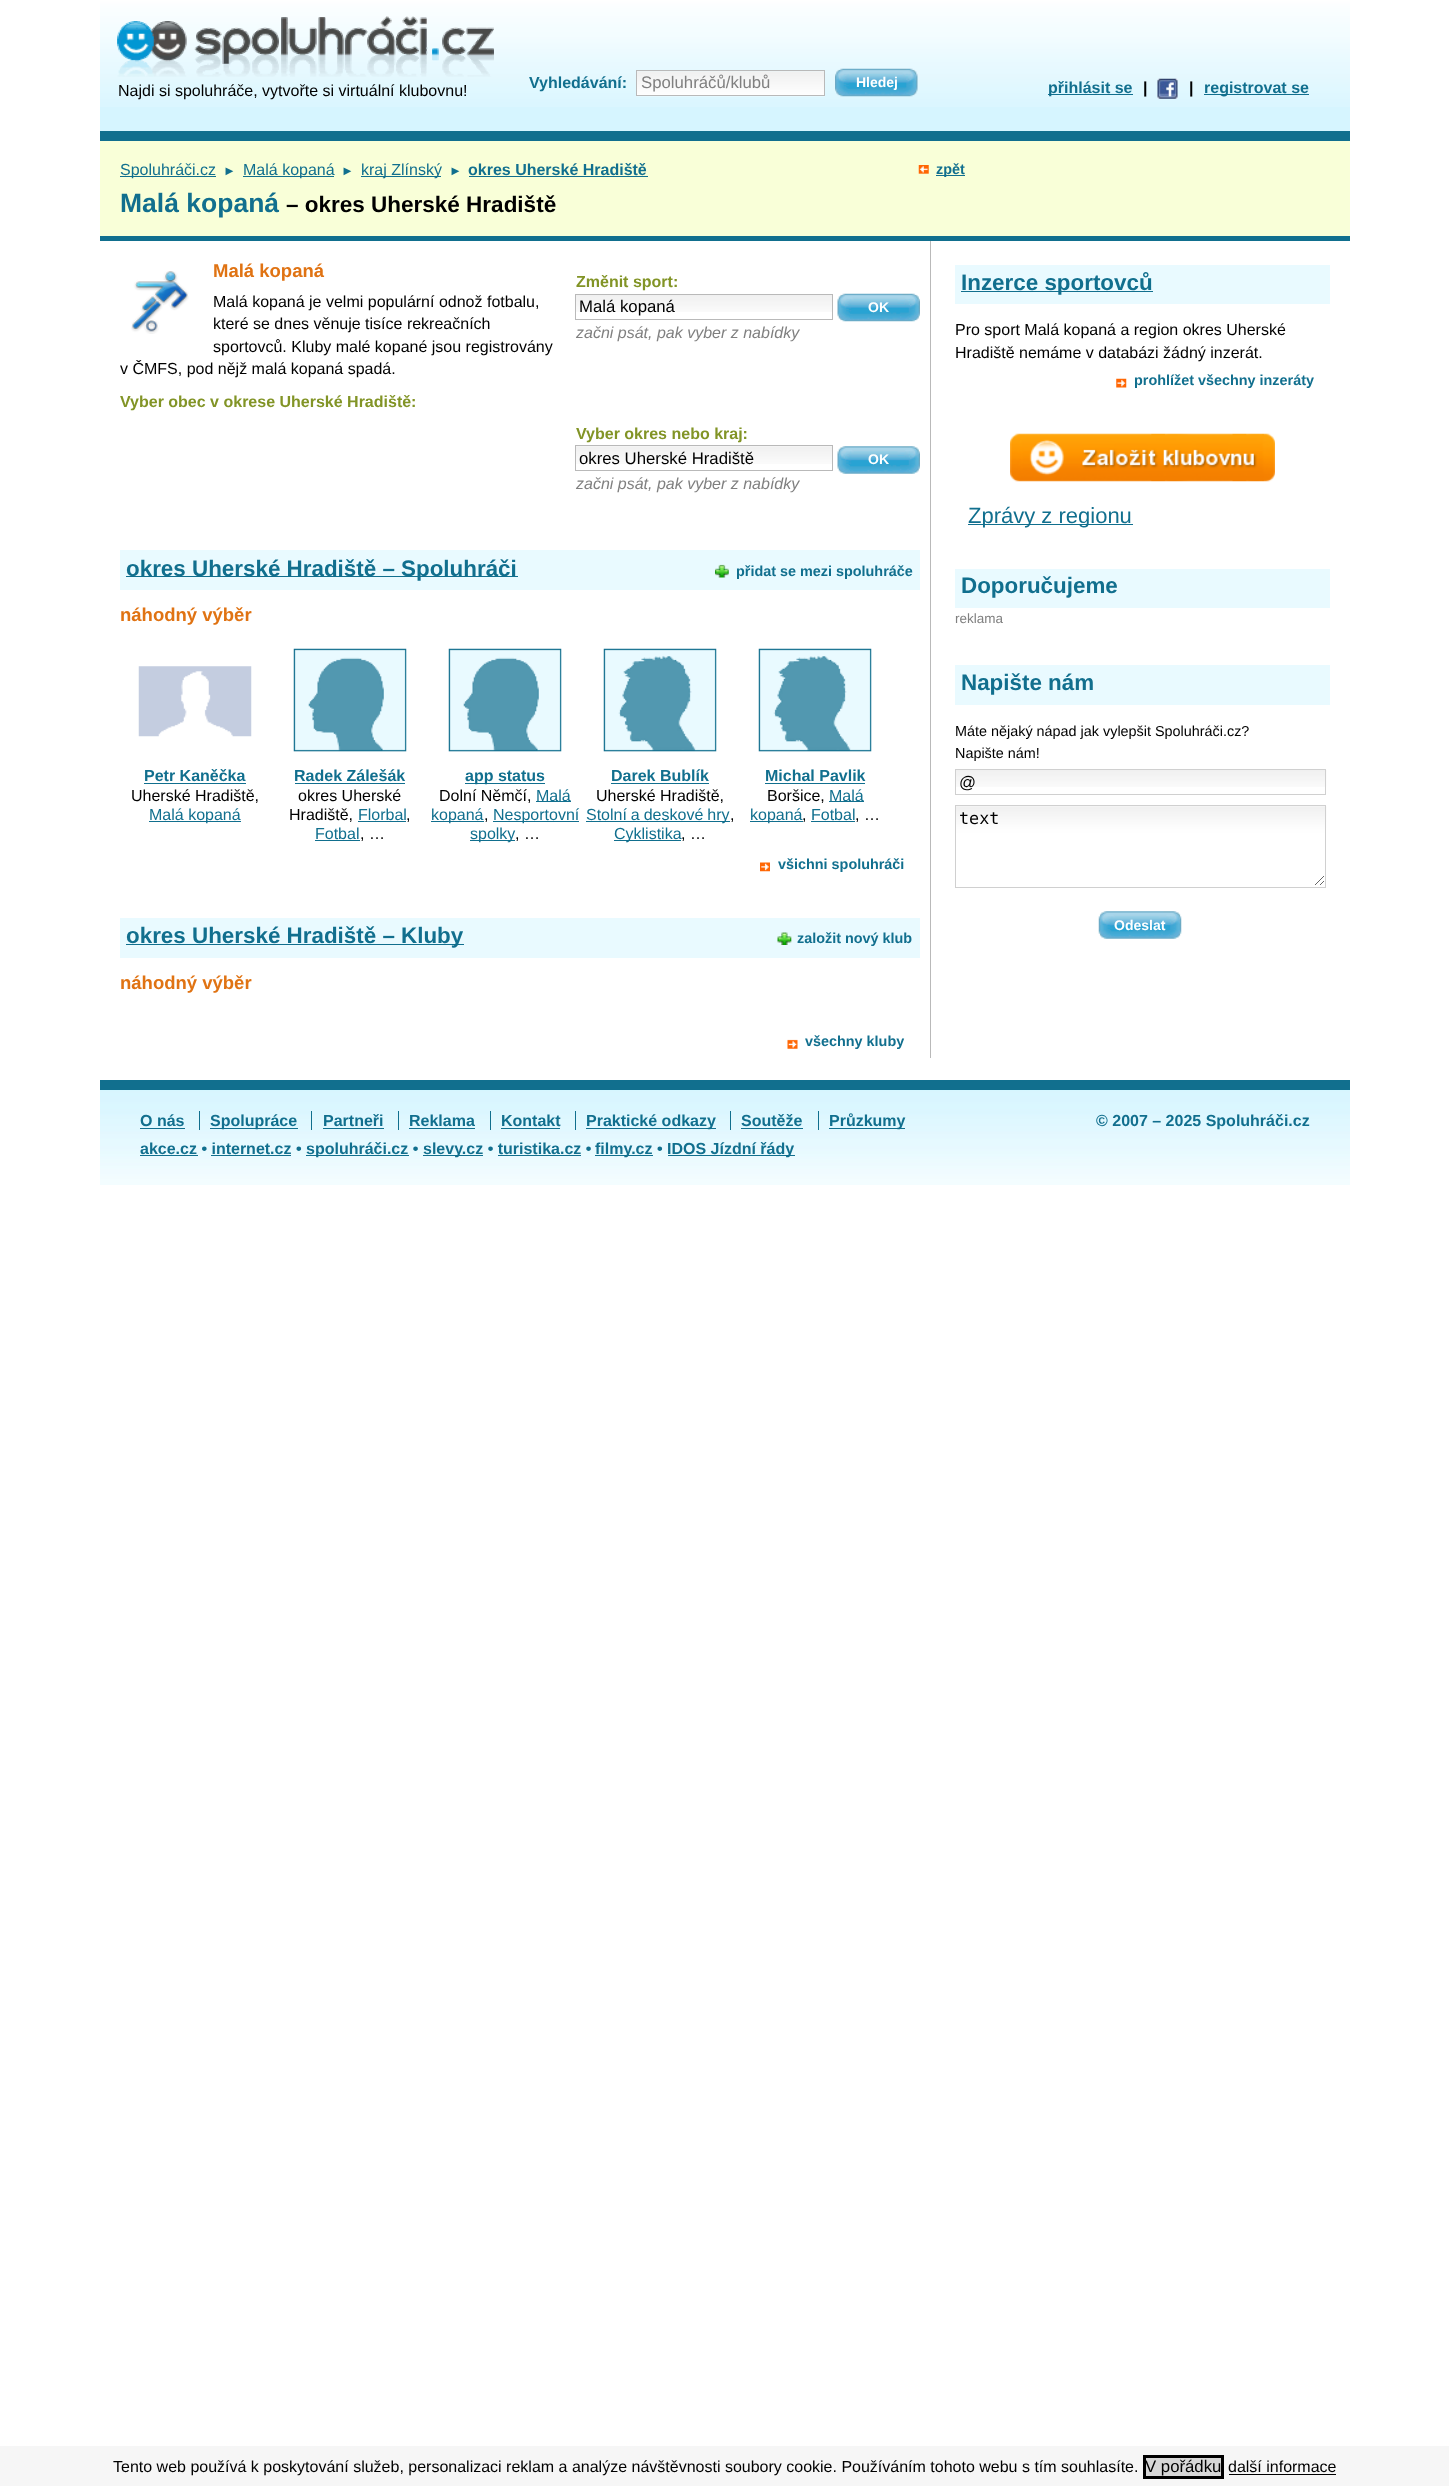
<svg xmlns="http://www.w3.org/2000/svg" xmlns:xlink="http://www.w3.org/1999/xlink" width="1449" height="2486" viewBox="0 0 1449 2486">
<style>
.cls-1{font:16px Liberation Sans;fill:#000000}
.cls-2{font:bold 16px Liberation Sans;fill:#116f8e}
.cls-3{font:16.75px Liberation Sans;fill:#808080}
.cls-4{font:bold 14px Liberation Sans;fill:#ffffff}
.cls-5{font:bold 16px Liberation Sans;fill:#000000}
.cls-6{font:16px Liberation Sans;fill:#116f8e}
.cls-7{font:13px Liberation Sans;fill:#116f8e}
.cls-8{font:bold 26.5px Liberation Sans;fill:#116f8e}
.cls-9{font:bold 22.5px Liberation Sans;fill:#000000}
.cls-10{font:bold 14.4px Liberation Sans;fill:#116f8e}
.cls-11{font:bold 18.5px Liberation Sans;fill:#e07313}
.cls-12{font:bold 16px Liberation Sans;fill:#829426}
.cls-13{font:16.75px Liberation Sans;fill:#000000}
.cls-14{font:italic 16px Liberation Sans;fill:#808080}
.cls-15{font:bold 22.4px Liberation Sans;fill:#116f8e}
.cls-16{font:22px Liberation Sans;fill:#116f8e}
.cls-17{font:13.5px Liberation Sans;fill:#808080}
.cls-18{font:14.4px Liberation Sans;fill:#000000}
.cls-19{font:16.75px DejaVu Sans Mono;fill:#000000}
</style>
<rect width="100%" height="100%" fill="#ffffff"/>
<rect fill="#d6f5ff" x="100" y="107" width="1250" height="24"/>
<image xlink:href="image0.png" x="100" y="0" width="1250" height="107"/>
<rect fill="#116f8e" x="100" y="131" width="1250" height="10"/>
<image xlink:href="image1.png" x="117" y="16" width="377" height="61"/>
<image xlink:href="image2.png" x="117" y="16" width="377" height="57"/>
<image xlink:href="image3.png" x="117" y="16" width="377" height="48"/>
<image xlink:href="image4.png" x="636" y="71" width="189" height="26"/>
<rect fill="none" stroke="#b9b9b9" x="636.5" y="70.5" width="188" height="25"/>
<image xlink:href="image5.png" x="835" y="68" width="83" height="29"/>
<rect fill="#116f8e" x="1048" y="94" width="85" height="1"/>
<image xlink:href="image6.png" x="1157" y="78" width="21" height="21"/>
<rect fill="#116f8e" x="1204" y="94" width="105" height="1"/>
<rect fill="#f9ffd8" x="100" y="141" width="1250" height="95"/>
<rect fill="#116f8e" x="100" y="236" width="1250" height="5"/>
<rect fill="#116f8e" x="120" y="176" width="96" height="1"/>
<rect fill="#116f8e" x="243" y="176" width="91" height="1"/>
<rect fill="#116f8e" x="361" y="176" width="80" height="1"/>
<rect fill="#116f8e" x="469" y="176" width="179" height="1"/>
<image xlink:href="image7.png" x="918" y="165" width="11" height="9"/>
<rect fill="#116f8e" x="936" y="175" width="29" height="1"/>
<rect fill="#b9b9b9" x="930" y="241" width="1" height="817"/>
<image xlink:href="image8.png" x="131" y="271" width="58" height="63"/>
<image xlink:href="image9.png" x="576" y="295" width="256" height="17"/>
<rect fill="none" stroke="#b9b9b9" x="575.5" y="294.5" width="257" height="25"/>
<image xlink:href="image10.png" x="837" y="293" width="83" height="29"/>
<image xlink:href="image11.png" x="576" y="446" width="256" height="18"/>
<rect fill="none" stroke="#b9b9b9" x="575.5" y="445.5" width="257" height="25"/>
<image xlink:href="image12.png" x="837" y="446" width="83" height="28"/>
<rect fill="#e9faff" x="120" y="550" width="800" height="40"/>
<rect fill="#116f8e" x="126" y="576" width="392" height="1"/>
<image xlink:href="image13.png" x="715" y="564" width="14" height="14"/>
<image xlink:href="image14.png" x="138" y="666" width="114" height="71"/>
<rect fill="#116f8e" x="144" y="783" width="102" height="1"/>
<rect fill="#116f8e" x="149" y="821" width="92" height="1"/>
<image xlink:href="image15.png" x="293" y="648" width="114" height="104"/>
<rect fill="#116f8e" x="295" y="783" width="110" height="1"/>
<rect fill="#116f8e" x="358" y="821" width="48" height="1"/>
<rect fill="#116f8e" x="315" y="840" width="45" height="1"/>
<image xlink:href="image15.png" x="448" y="648" width="114" height="104"/>
<rect fill="#116f8e" x="465" y="783" width="80" height="1"/>
<rect fill="#116f8e" x="536" y="801" width="35" height="1"/>
<rect fill="#116f8e" x="431" y="821" width="53" height="1"/>
<rect fill="#116f8e" x="493" y="821" width="86" height="1"/>
<rect fill="#116f8e" x="470" y="840" width="45" height="1"/>
<image xlink:href="image16.png" x="603" y="648" width="114" height="104"/>
<rect fill="#116f8e" x="611" y="783" width="98" height="1"/>
<rect fill="#116f8e" x="586" y="821" width="144" height="1"/>
<rect fill="#116f8e" x="614" y="840" width="67" height="1"/>
<image xlink:href="image16.png" x="758" y="648" width="114" height="104"/>
<rect fill="#116f8e" x="765" y="783" width="100" height="1"/>
<rect fill="#116f8e" x="829" y="801" width="35" height="1"/>
<rect fill="#116f8e" x="750" y="821" width="53" height="1"/>
<rect fill="#116f8e" x="811" y="821" width="44" height="1"/>
<image xlink:href="image17.png" x="760" y="862" width="10" height="10"/>
<rect fill="#e9faff" x="120" y="918" width="800" height="40"/>
<rect fill="#116f8e" x="126" y="944" width="338" height="1"/>
<image xlink:href="image18.png" x="777" y="932" width="15" height="13"/>
<image xlink:href="image19.png" x="787" y="1039" width="11" height="10"/>
<rect fill="#e9faff" x="955" y="265" width="375" height="39"/>
<rect fill="#116f8e" x="961" y="291" width="192" height="1"/>
<image xlink:href="image20.png" x="1116" y="378" width="11" height="10"/>
<image xlink:href="image21.png" x="1010" y="433" width="265" height="49"/>
<rect fill="#116f8e" x="968" y="524" width="165" height="1"/>
<rect fill="#e9faff" x="955" y="569" width="375" height="39"/>
<rect fill="#e9faff" x="955" y="665" width="375" height="40"/>
<image xlink:href="image22.png" x="956" y="770" width="371" height="17"/>
<rect fill="none" stroke="#d0d0d0" x="955.5" y="769.5" width="370" height="25"/>
<image xlink:href="image23.png" x="956" y="806" width="371" height="79"/>
<rect fill="none" stroke="#d0d0d0" x="955.5" y="805.5" width="370" height="82"/>
<image xlink:href="image24.png" x="1098" y="911" width="84" height="28"/>
<image xlink:href="image25.png" x="100" y="1090" width="1250" height="95"/>
<rect fill="#116f8e" x="100" y="1080" width="1250" height="10"/>
<rect fill="#116f8e" x="140" y="1128" width="45" height="1"/>
<rect fill="#116f8e" x="199" y="1111" width="1" height="19"/>
<rect fill="#116f8e" x="210" y="1128" width="88" height="1"/>
<rect fill="#116f8e" x="311" y="1111" width="1" height="19"/>
<rect fill="#116f8e" x="323" y="1128" width="61" height="1"/>
<rect fill="#116f8e" x="398" y="1111" width="1" height="19"/>
<rect fill="#116f8e" x="409" y="1128" width="66" height="1"/>
<rect fill="#116f8e" x="490" y="1111" width="1" height="19"/>
<rect fill="#116f8e" x="501" y="1128" width="59" height="1"/>
<rect fill="#116f8e" x="575" y="1111" width="1" height="19"/>
<rect fill="#116f8e" x="586" y="1128" width="130" height="1"/>
<rect fill="#116f8e" x="730" y="1111" width="1" height="19"/>
<rect fill="#116f8e" x="741" y="1128" width="62" height="1"/>
<rect fill="#116f8e" x="818" y="1111" width="1" height="19"/>
<rect fill="#116f8e" x="829" y="1128" width="76" height="1"/>
<rect fill="#116f8e" x="140" y="1155" width="58" height="1"/>
<rect fill="#116f8e" x="306" y="1155" width="103" height="1"/>
<rect fill="#116f8e" x="423" y="1155" width="60" height="1"/>
<rect fill="#116f8e" x="595" y="1155" width="58" height="1"/>
<rect fill="#116f8e" x="668" y="1155" width="127" height="1"/>
<rect fill="#116f8e" x="211" y="1155" width="80" height="1"/>
<rect fill="#116f8e" x="498" y="1155" width="83" height="1"/>
<rect fill="#f6f6f6" x="0" y="2446" width="1449" height="40"/>
<rect fill="#d7d7d7" stroke="#000000" stroke-width="3" x="1144.5" y="2456.5" width="78" height="21"/>
<rect fill="#000000" x="1229" y="2474" width="107" height="1"/>
<text class="cls-1" x="118" y="96">Najdi si spoluhráče, vytvořte si virtuální klubovnu!</text>
<text class="cls-2" x="529" y="88">Vyhledávání:</text>
<text class="cls-3" x="641" y="88">Spoluhráčů/klubů</text>
<text class="cls-4" x="856" y="87">Hledej</text>
<text class="cls-2" x="1048" y="93">přihlásit se</text>
<text class="cls-5" x="1143" y="93">|</text>
<text class="cls-5" x="1189" y="93">|</text>
<text class="cls-2" x="1204" y="93">registrovat se</text>
<text class="cls-6" x="120" y="175">Spoluhráči.cz</text>
<text class="cls-7" x="223" y="175">►</text>
<text class="cls-6" x="243" y="175">Malá kopaná</text>
<text class="cls-7" x="341" y="175">►</text>
<text class="cls-6" x="361" y="175">kraj Zlínský</text>
<text class="cls-7" x="449" y="175">►</text>
<text class="cls-2" x="468" y="175">okres Uherské Hradiště</text>
<text class="cls-8" x="120" y="212">Malá kopaná</text>
<text class="cls-9" x="286" y="212">– okres Uherské Hradiště</text>
<text class="cls-10" x="936" y="174">zpět</text>
<text class="cls-11" x="213" y="277">Malá kopaná</text>
<text class="cls-12" x="576" y="287">Změnit sport:</text>
<text class="cls-13" x="579" y="312">Malá kopaná</text>
<text class="cls-4" x="868" y="312">OK</text>
<text class="cls-14" x="576" y="338">začni psát, pak vyber z nabídky</text>
<text class="cls-1"><tspan x="213" y="307">Malá kopaná je velmi populární odnož fotbalu,</tspan><tspan x="213" y="329">které se dnes věnuje tisíce rekreačních</tspan><tspan x="213" y="352">sportovců. Kluby malé kopané jsou registrovány</tspan></text>
<text class="cls-1" x="120" y="374">v ČMFS, pod nějž malá kopaná spadá.</text>
<text class="cls-12" x="120" y="407">Vyber obec v okrese Uherské Hradiště:</text>
<text class="cls-12" x="576" y="439">Vyber okres nebo kraj:</text>
<text class="cls-13" x="579" y="464">okres Uherské Hradiště</text>
<text class="cls-4" x="868" y="464">OK</text>
<text class="cls-14" x="576" y="489">začni psát, pak vyber z nabídky</text>
<text class="cls-15" x="126" y="576">okres Uherské Hradiště – Spoluhráči</text>
<text class="cls-10" x="736" y="576">přidat se mezi spoluhráče</text>
<text class="cls-11" x="120" y="621">náhodný výběr</text>
<text class="cls-2" x="144" y="781">Petr Kaněčka</text>
<text class="cls-1" x="131" y="801">Uherské Hradiště,</text>
<text class="cls-6" x="149" y="820">Malá kopaná</text>
<text class="cls-2" x="294" y="781">Radek Zálešák</text>
<text class="cls-1" x="298" y="801">okres Uherské</text>
<text class="cls-1" x="289" y="820">Hradiště,</text>
<text class="cls-6" x="358" y="820">Florbal</text>
<text class="cls-1" x="406" y="820">,</text>
<text class="cls-6" x="315" y="839">Fotbal</text>
<text class="cls-1" x="360" y="839">, …</text>
<text class="cls-2" x="465" y="781">app status</text>
<text class="cls-1" x="439" y="801">Dolní Němčí,</text>
<text class="cls-6" x="536" y="801">Malá</text>
<text class="cls-6" x="431" y="820">kopaná</text>
<text class="cls-1" x="484" y="820">,</text>
<text class="cls-6" x="493" y="820">Nesportovní</text>
<text class="cls-6" x="470" y="839">spolky</text>
<text class="cls-1" x="515" y="839">, …</text>
<text class="cls-2" x="611" y="781">Darek Bublík</text>
<text class="cls-1" x="596" y="801">Uherské Hradiště,</text>
<text class="cls-6" x="586" y="820" word-spacing="-0.5">Stolní a deskové hry</text>
<text class="cls-1" x="730" y="820">,</text>
<text class="cls-6" x="614" y="839">Cyklistika</text>
<text class="cls-1" x="681" y="839">, …</text>
<text class="cls-2" x="765" y="781">Michal Pavlik</text>
<text class="cls-1" x="767" y="801">Boršice,</text>
<text class="cls-6" x="829" y="801">Malá</text>
<text class="cls-6" x="750" y="820">kopaná</text>
<text class="cls-1" x="802" y="820">,</text>
<text class="cls-6" x="811" y="820">Fotbal</text>
<text class="cls-1" x="855" y="820">, …</text>
<text class="cls-10" x="778" y="869">všichni spoluhráči</text>
<text class="cls-15" x="126" y="943">okres Uherské Hradiště – Kluby</text>
<text class="cls-10" x="797" y="943">založit nový klub</text>
<text class="cls-11" x="120" y="989">náhodný výběr</text>
<text class="cls-10" x="805" y="1046">všechny kluby</text>
<text class="cls-15" x="961" y="290">Inzerce sportovců</text>
<text class="cls-1"><tspan x="955" y="335">Pro sport Malá kopaná a region okres Uherské</tspan><tspan x="955" y="358">Hradiště nemáme v databázi žádný inzerát.</tspan></text>
<text class="cls-10" x="1134" y="385">prohlížet všechny inzeráty</text>
<text class="cls-16" x="968" y="523">Zprávy z regionu</text>
<text class="cls-15" x="961" y="593">Doporučujeme</text>
<text class="cls-17" x="955" y="623">reklama</text>
<text class="cls-15" x="961" y="690">Napište nám</text>
<text class="cls-18"><tspan x="955" y="736">Máte nějaký nápad jak vylepšit Spoluhráči.cz?</tspan><tspan x="955" y="758">Napište nám!</tspan></text>
<text class="cls-13" x="959" y="788">@</text>
<text class="cls-19" x="959" y="824">text</text>
<text class="cls-4" x="1114" y="930">Odeslat</text>
<text class="cls-2" x="140" y="1126">O nás</text>
<text class="cls-2" x="210" y="1126">Spolupráce</text>
<text class="cls-2" x="323" y="1126">Partneři</text>
<text class="cls-2" x="409" y="1126">Reklama</text>
<text class="cls-2" x="501" y="1126">Kontakt</text>
<text class="cls-2" x="586" y="1126">Praktické odkazy</text>
<text class="cls-2" x="741" y="1126">Soutěže</text>
<text class="cls-2" x="829" y="1126">Průzkumy</text>
<text class="cls-2" x="1096" y="1126">© 2007 – 2025 Spoluhráči.cz</text>
<text class="cls-2" x="140" y="1154">akce.cz • internet.cz •</text>
<text class="cls-2" x="306" y="1154">spoluhráči.cz •</text>
<text class="cls-2" x="423" y="1154">slevy.cz • turistika.cz •</text>
<text class="cls-2" x="595" y="1154">filmy.cz •</text>
<text class="cls-2" x="667" y="1154">IDOS Jízdní řády</text>
<text class="cls-1" x="113" y="2472">Tento web používá k poskytování služeb, personalizaci reklam a analýze návštěvnosti soubory cookie. Používáním tohoto webu s tím souhlasíte.</text>
<text class="cls-13" x="1145" y="2472">V pořádku</text>
<text class="cls-1" x="1228" y="2472">další informace</text>
</svg>
